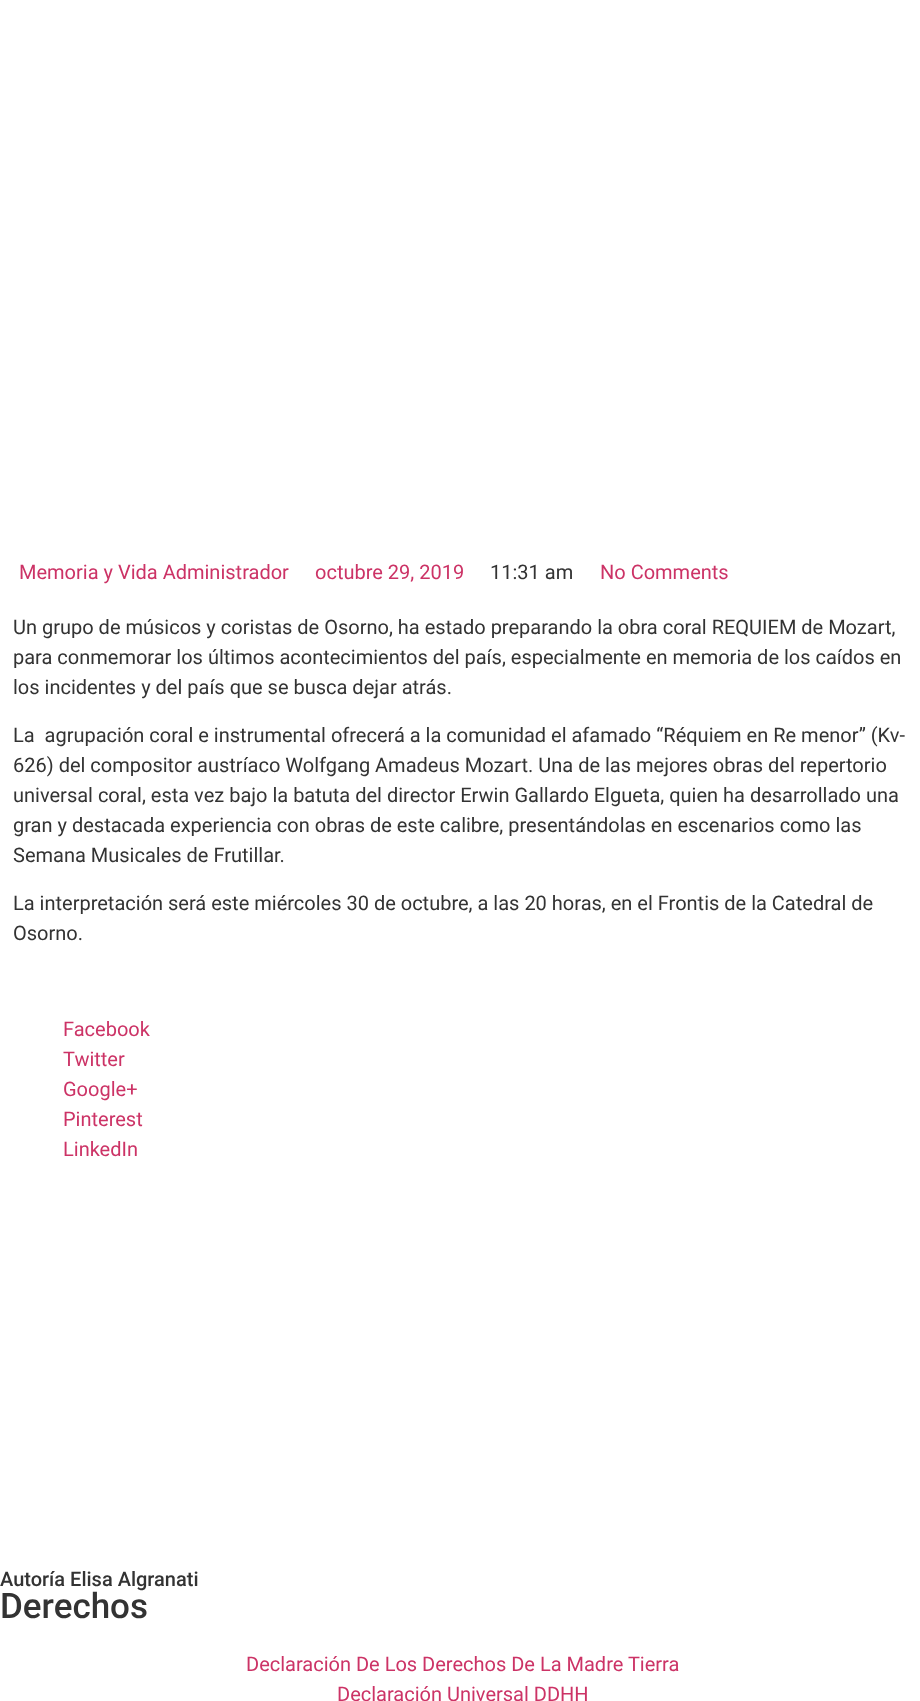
<svg xmlns="http://www.w3.org/2000/svg" xmlns:xlink="http://www.w3.org/1999/xlink" width="920" height="1701" viewBox="0 0 920 1701">
<style>
.cls-1{font:20px Roboto;fill:#cc3366}
.cls-2{font:20px Roboto;fill:#333333}
.cls-3{font:500 20px Roboto;fill:#333333}
.cls-4{font:500 35px Roboto;fill:#333333}
</style>
<rect width="100%" height="100%" fill="#ffffff"/>
<text class="cls-1" x="19" y="579">Memoria y Vida Administrador</text>
<text class="cls-1" x="315" y="579">octubre 29, 2019</text>
<text class="cls-2" x="490" y="579">11:31 am</text>
<text class="cls-1" x="600" y="579">No Comments</text>
<text class="cls-2"><tspan x="13" y="634">Un grupo de músicos y coristas de Osorno, ha estado preparando la obra coral REQUIEM de Mozart,</tspan><tspan x="13" y="664">para conmemorar los últimos acontecimientos del país, especialmente en memoria de los caídos en</tspan><tspan x="13" y="694">los incidentes y del país que se busca dejar atrás.</tspan></text>
<text class="cls-2" xml:space="preserve"><tspan x="13" y="742">La  agrupación coral e instrumental ofrecerá a la comunidad el afamado “Réquiem en Re menor” (Kv-</tspan><tspan x="13" y="772">626) del compositor austríaco Wolfgang Amadeus Mozart. Una de las mejores obras del repertorio</tspan><tspan x="13" y="802">universal coral, esta vez bajo la batuta del director Erwin Gallardo Elgueta, quien ha desarrollado una</tspan><tspan x="13" y="832">gran y destacada experiencia con obras de este calibre, presentándolas en escenarios como las</tspan><tspan x="13" y="862">Semana Musicales de Frutillar.</tspan></text>
<text class="cls-2"><tspan x="13" y="910">La interpretación será este miércoles 30 de octubre, a las 20 horas, en el Frontis de la Catedral de</tspan><tspan x="13" y="940">Osorno.</tspan></text>
<text class="cls-1"><tspan x="63" y="1036">Facebook</tspan><tspan x="63" y="1066">Twitter</tspan><tspan x="63" y="1096">Google+</tspan><tspan x="63" y="1126">Pinterest</tspan><tspan x="63" y="1156">LinkedIn</tspan></text>
<text class="cls-3" x="0" y="1586">Autoría Elisa Algranati</text>
<text class="cls-4" x="0" y="1618">Derechos</text>
<text class="cls-1" x="246" y="1671">Declaración De Los Derechos De La Madre Tierra</text>
<text class="cls-1" x="337" y="1701">Declaración Universal DDHH</text>
</svg>
